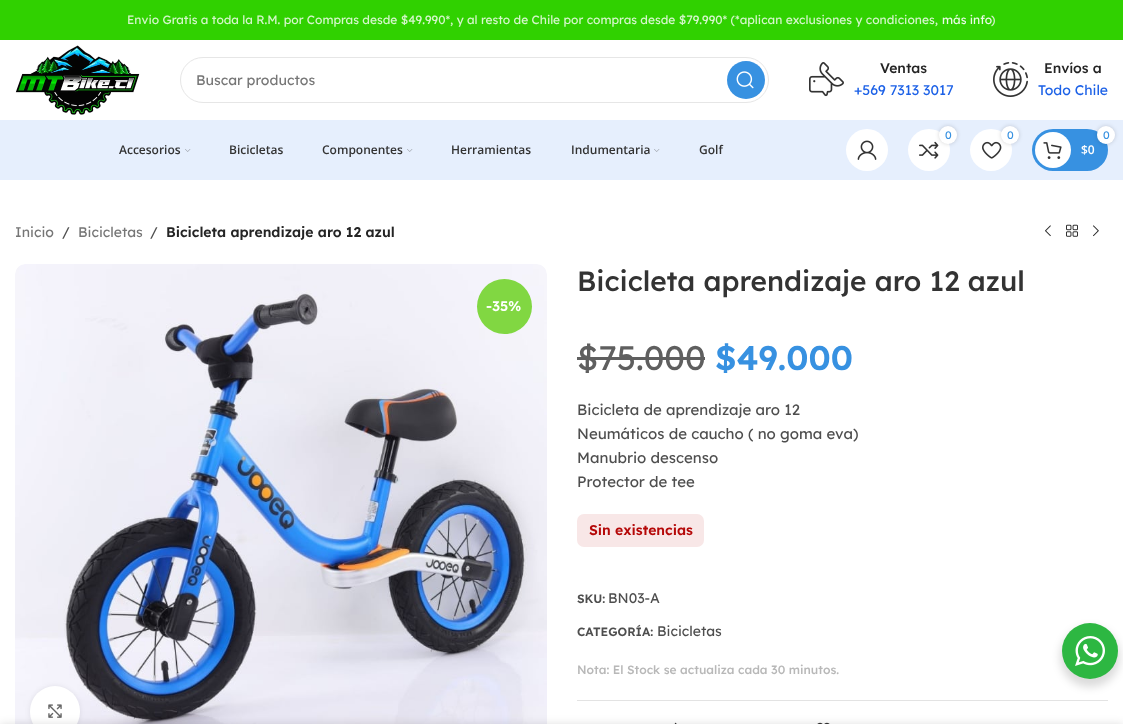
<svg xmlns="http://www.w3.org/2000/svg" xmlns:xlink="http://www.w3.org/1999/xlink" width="1123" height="724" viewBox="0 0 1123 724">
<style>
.cls-1{font:12px Lexend Deca;fill:#d6f6cc}
.cls-2{font:12px Lexend Deca;fill:#eafae6}
.cls-3{font:14px Lexend Deca;fill:#767676}
.cls-4{font:500 14px Lexend Deca;fill:#242424}
.cls-5{font:14px Lexend Deca;fill:#1c61e7}
.cls-6{font:600 12px Open Sans;fill:#333333}
.cls-7{font:11px Lexend Deca;fill:#3791e1}
.cls-8{font:600 12px Open Sans;fill:#ffffff}
.cls-9{font:14px Lexend Deca;fill:#4e4e4e}
.cls-10{font:600 14px Lexend Deca;fill:#242424}
.cls-11{font:600 14px Lexend Deca;fill:#ffffff}
.cls-12{font:500 28px Lexend Deca;fill:#333333}
.cls-13{font:34px Lexend Deca;fill:#5f5f5f}
.cls-14{font:600 34px Lexend Deca;fill:#3791e1}
.cls-15{font:15px Lexend Deca;fill:#4e4e4e}
.cls-16{font:600 14px Lexend Deca;fill:#b50808}
.cls-17{font:600 12px Lexend Deca;fill:#4e4e4e}
.cls-18{font:500 12px Lexend Deca;fill:#b8b8b8}
</style>
<rect width="100%" height="100%" fill="#ffffff"/>
<rect fill="#30d100" x="0" y="0" width="1123" height="40"/>
<image xlink:href="image0.png" x="15" y="45" width="125" height="70"/>
<rect fill="none" stroke="#e6e6e6" x="180.5" y="57.5" width="588" height="45" rx="22.5"/>
<circle fill="#3791e1" cx="746" cy="80" r="19"/>
<image xlink:href="image1.png" x="736" y="71" width="18" height="18"/>
<image xlink:href="image2.png" x="809" y="62" width="35" height="35"/>
<image xlink:href="image3.png" x="993" y="62" width="35" height="35"/>
<rect fill="#e6effd" x="0" y="120" width="1123" height="60"/>
<image xlink:href="image4.png" x="185" y="149" width="6" height="3"/>
<image xlink:href="image4.png" x="407" y="149" width="6" height="3"/>
<image xlink:href="image4.png" x="654" y="149" width="6" height="3"/>
<circle fill="#ffffff" cx="867" cy="150" r="21"/>
<image xlink:href="image5.png" x="857" y="140" width="20" height="20"/>
<circle fill="#ffffff" cx="929" cy="150" r="21"/>
<image xlink:href="image6.png" x="919" y="141" width="20" height="18"/>
<rect fill="#000000" fill-opacity="0.17" filter="blur(2px)" x="939" y="126" width="18" height="18" rx="9"/>
<circle fill="#ffffff" cx="948" cy="135" r="9"/>
<circle fill="#ffffff" cx="991" cy="150" r="21"/>
<image xlink:href="image7.png" x="982" y="141" width="20" height="18"/>
<rect fill="#000000" fill-opacity="0.17" filter="blur(2px)" x="1001" y="126" width="18" height="18" rx="9"/>
<circle fill="#ffffff" cx="1010" cy="135" r="9"/>
<rect fill="#3791e1" x="1032" y="129" width="76" height="42" rx="21"/>
<circle fill="#ffffff" cx="1053" cy="150" r="18"/>
<rect fill="#000000" fill-opacity="0.17" filter="blur(2px)" x="1097" y="126" width="18" height="18" rx="9"/>
<circle fill="#ffffff" cx="1106" cy="135" r="9"/>
<image xlink:href="image8.png" x="1043" y="142" width="19" height="17"/>
<image xlink:href="image9.png" x="1045" y="225" width="6" height="12"/>
<image xlink:href="image10.png" x="1066" y="224" width="12" height="13"/>
<image xlink:href="image11.png" x="1093" y="225" width="6" height="12"/>
<image xlink:href="image12.png" x="15" y="264" width="532" height="460"/>
<circle fill="#81d742" cx="504.5" cy="306.5" r="27.5"/>
<rect fill="#000000" fill-opacity="0.08" filter="blur(2.5px)" x="30" y="686" width="50" height="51" rx="25"/>
<rect fill="#ffffff" x="30" y="686" width="50" height="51" rx="25"/>
<image xlink:href="image13.png" x="48" y="704" width="14" height="14"/>
<rect fill="#5f5f5f" x="577" y="357" width="128" height="3"/>
<rect fill="#f8e7e7" x="577" y="514" width="127" height="33" rx="7"/>
<rect fill="#e3e3e3" x="577" y="700" width="531" height="1"/>
<image xlink:href="image14.png" x="674" y="722" width="3" height="2"/>
<image xlink:href="image15.png" x="817" y="722" width="13" height="2"/>
<rect fill="#000000" fill-opacity="0.14" filter="blur(4px)" x="1060" y="627" width="60" height="60" rx="30"/>
<circle fill="#2db742" cx="1090" cy="651" r="28"/>
<image xlink:href="image16.png" x="1075" y="636" width="30" height="30"/>
<rect fill="#000000" fill-opacity="0.12" filter="blur(4.5px)" x="0" y="724" width="1123" height="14"/>
<text class="cls-1" x="127" y="24">Envio Gratis a toda la R.M. por Compras desde $49.990*, y al resto de Chile por compras desde $79.990* (*aplican exclusiones y condiciones,</text>
<text class="cls-2" x="942" y="24">más info</text>
<text class="cls-1" x="991" y="24">)</text>
<text class="cls-3" x="196" y="85">Buscar productos</text>
<text class="cls-4" x="880" y="73">Ventas</text>
<text class="cls-5" x="854" y="95">+569 7313 3017</text>
<text class="cls-4" x="1044" y="73">Envíos a</text>
<text class="cls-5" x="1038" y="95">Todo Chile</text>
<text class="cls-6" x="119" y="154">Accesorios</text>
<text class="cls-6" x="229" y="154">Bicicletas</text>
<text class="cls-6" x="322" y="154">Componentes</text>
<text class="cls-6" x="451" y="154">Herramientas</text>
<text class="cls-6" x="571" y="154">Indumentaria</text>
<text class="cls-6" x="699" y="154">Golf</text>
<text class="cls-7" x="945" y="139">0</text>
<text class="cls-7" x="1007" y="139">0</text>
<text class="cls-7" x="1103" y="139">0</text>
<text class="cls-8" x="1081" y="154">$0</text>
<text class="cls-3" x="15" y="237">Inicio</text>
<text class="cls-9" x="62" y="237">/</text>
<text class="cls-3" x="78" y="237">Bicicletas</text>
<text class="cls-9" x="150" y="237">/</text>
<text class="cls-10" x="166" y="237">Bicicleta aprendizaje aro 12 azul</text>
<text class="cls-11" x="486" y="311">-35%</text>
<text class="cls-12" x="577" y="291">Bicicleta aprendizaje aro 12 azul</text>
<text class="cls-13" x="577" y="370">$75.000</text>
<text class="cls-14" x="715" y="370">$49.000</text>
<text class="cls-15"><tspan x="577" y="415">Bicicleta de aprendizaje aro 12</tspan><tspan x="577" y="439">Neumáticos de caucho ( no goma eva)</tspan><tspan x="577" y="463">Manubrio descenso</tspan><tspan x="577" y="487">Protector de tee</tspan></text>
<text class="cls-16" x="589" y="535">Sin existencias</text>
<text class="cls-17" x="577" y="603">SKU:</text>
<text class="cls-9" x="608" y="603">BN03-A</text>
<text class="cls-17" x="577" y="636">CATEGORÍA:</text>
<text class="cls-9" x="657" y="636">Bicicletas</text>
<text class="cls-18" x="577" y="674">Nota: El Stock se actualiza cada 30 minutos.</text>
</svg>
